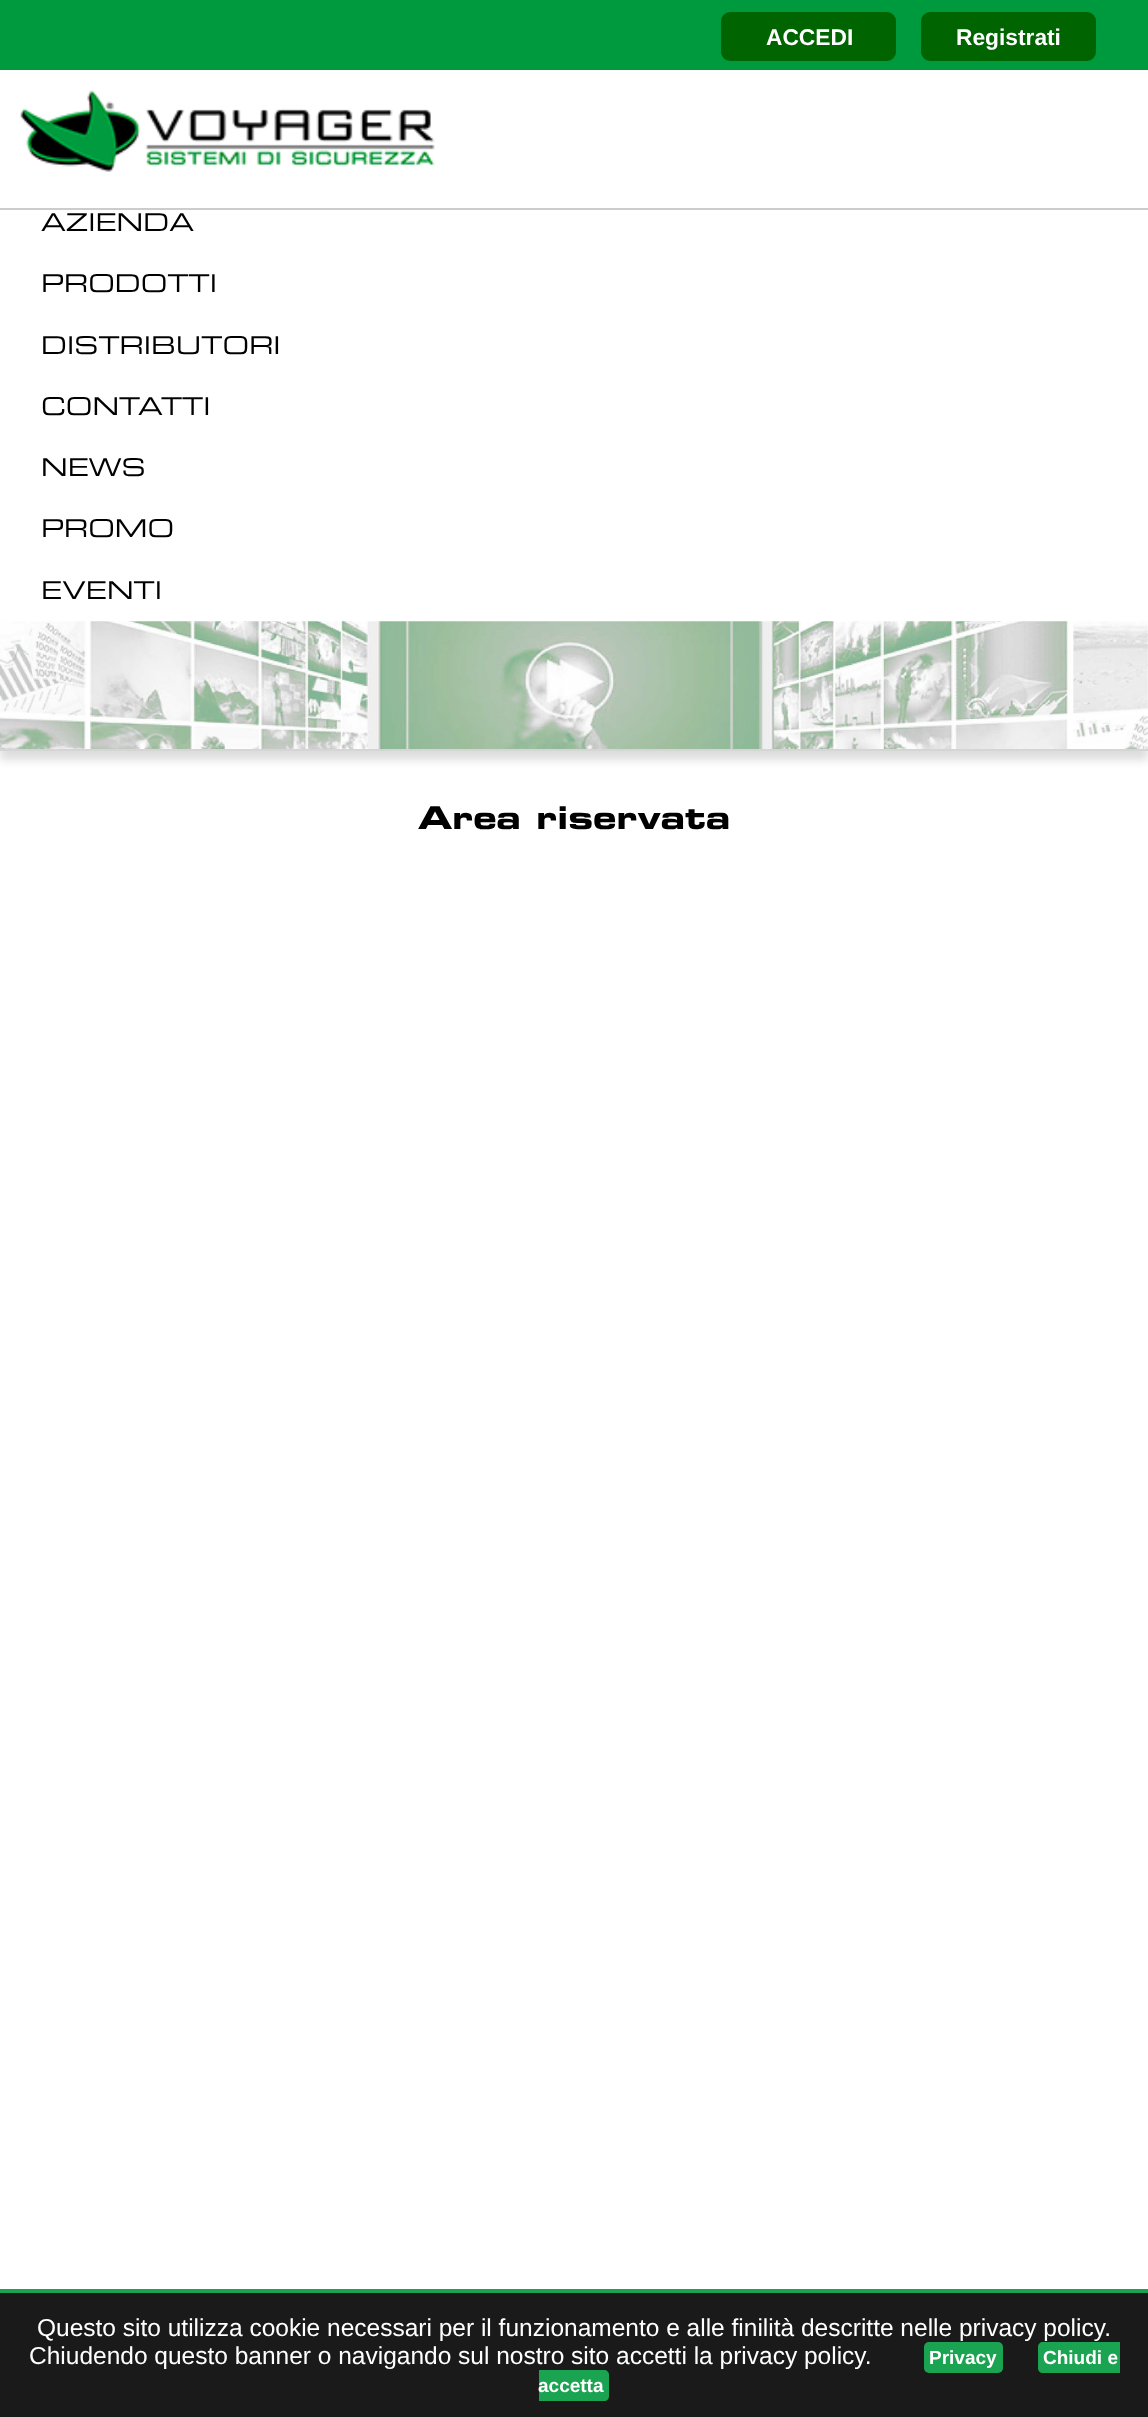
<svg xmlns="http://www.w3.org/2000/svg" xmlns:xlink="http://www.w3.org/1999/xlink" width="1148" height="2417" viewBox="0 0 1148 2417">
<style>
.cls-1{font:bold 22.75px Liberation Sans;fill:#ffffff}
.cls-2{font:24.5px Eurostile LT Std;fill:#000000}
.cls-3{font:bold 31.5px Eurostile LT Std;fill:#000000}
.cls-4{font:24.5px Liberation Sans;fill:#ffffff}
.cls-5{font:bold 19px Liberation Sans;fill:#ffffff}
</style>
<rect width="100%" height="100%" fill="#ffffff"/>
<rect fill="#009a3e" x="0" y="0" width="1148" height="70"/>
<rect fill="#006400" stroke="#006400" stroke-width="2" x="722" y="13" width="173" height="47" rx="8"/>
<rect fill="#006400" stroke="#006400" stroke-width="2" x="922" y="13" width="173" height="47" rx="8"/>
<rect fill="#cccccc" x="0" y="208" width="1148" height="2"/>
<image xlink:href="image0.png" x="20" y="90" width="415" height="82"/>
<rect fill="#dddddd" filter="blur(4.5px)" x="0" y="630" width="1148" height="130"/>
<rect fill="#ffffff" x="0" y="624" width="1148" height="125"/>
<image xlink:href="image1.png" x="0" y="621" width="1148" height="128"/>
<rect fill="#d5d5d5" x="0" y="749" width="1148" height="2"/>
<rect fill="#1a1a1a" x="0" y="2293" width="1148" height="124"/>
<rect fill="#1aa451" x="0" y="2289" width="1148" height="4"/>
<rect fill="#1aa451" x="924" y="2342" width="79" height="31" rx="5"/>
<path fill="#1aa451" d="M1043 2342H1120V2373H1043C1040 2373 1038 2371 1038 2368V2347C1038 2344 1040 2342 1043 2342Z"/>
<path fill="#1aa451" d="M539 2370H604C607 2370 609 2372 609 2375V2396C609 2399 607 2401 604 2401H539Z"/>
<text class="cls-1" x="766" y="45">ACCEDI</text>
<text class="cls-1" x="956" y="45">Registrati</text>
<text class="cls-2" x="41" y="231">AZIENDA</text>
<text class="cls-2" x="41" y="292">PRODOTTI</text>
<text class="cls-2" x="41" y="354">DISTRIBUTORI</text>
<text class="cls-2" x="41" y="415">CONTATTI</text>
<text class="cls-2" x="41" y="476">NEWS</text>
<text class="cls-2" x="41" y="537">PROMO</text>
<text class="cls-2" x="41" y="599">EVENTI</text>
<text class="cls-3" x="418" y="829">Area riservata</text>
<text class="cls-4" x="37" y="2336">Questo sito utilizza cookie necessari per il funzionamento e alle finilità descritte nelle privacy policy.</text>
<text class="cls-4" x="29" y="2364">Chiudendo questo banner o navigando sul nostro sito accetti la privacy policy.</text>
<text class="cls-5" x="929" y="2364">Privacy</text>
<text class="cls-5" x="1043" y="2364">Chiudi e</text>
<text class="cls-5" x="538" y="2392">accetta</text>
</svg>
